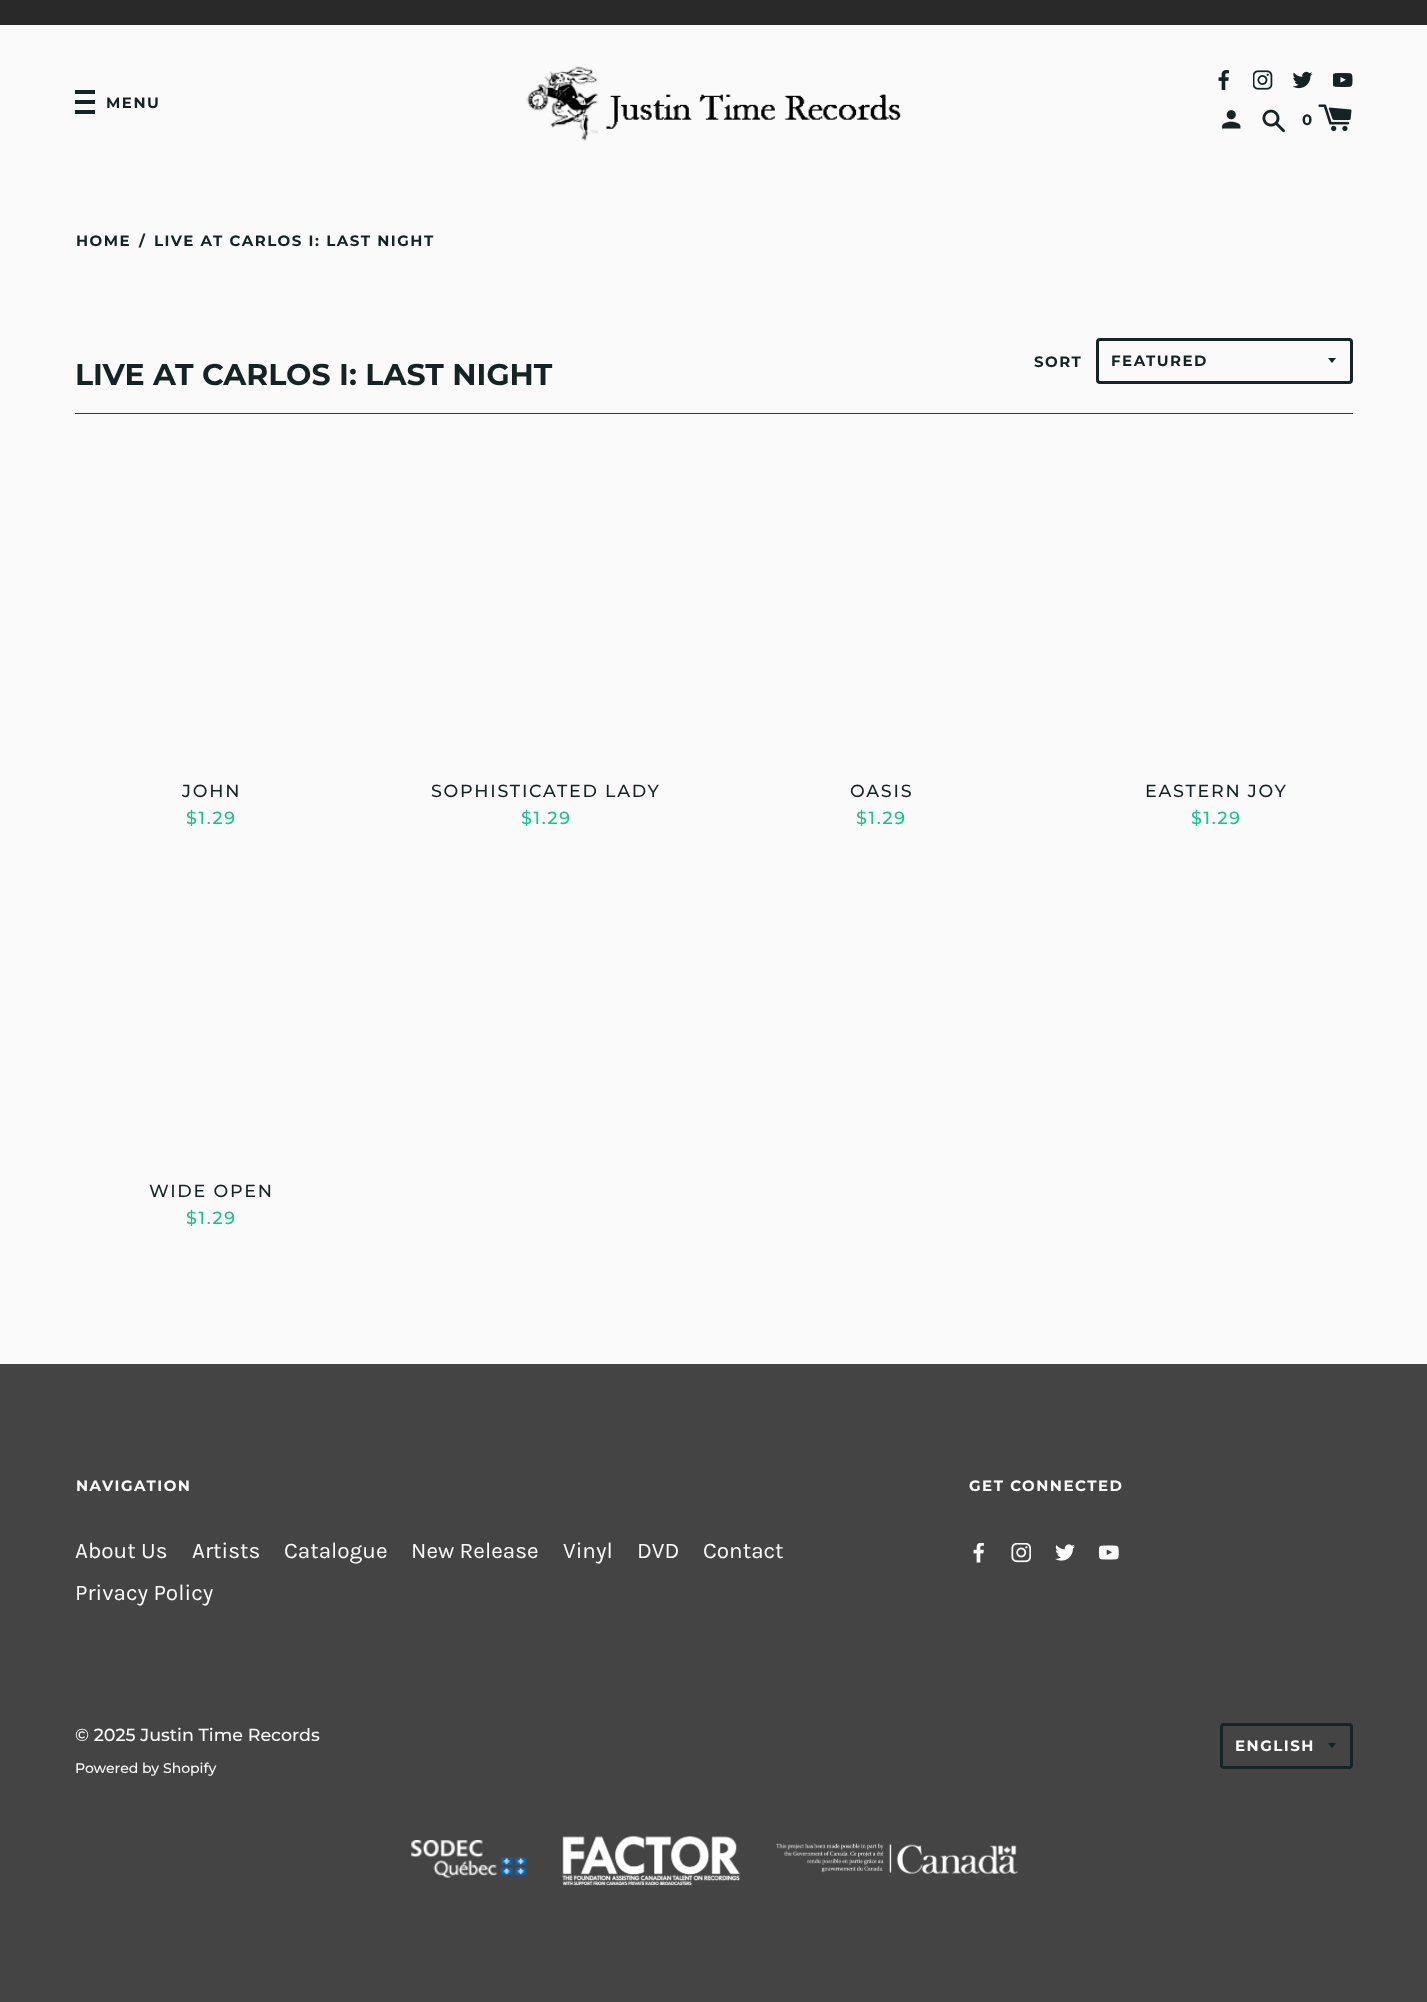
<svg xmlns="http://www.w3.org/2000/svg" xmlns:xlink="http://www.w3.org/1999/xlink" width="1427" height="2002" viewBox="0 0 1427 2002">
<style>
.cls-1{font:bold 15px Montserrat;letter-spacing:1.5px;fill:#152324}
.cls-2{font:bold 15px Montserrat;fill:#152324}
.cls-3{font:bold 30px Montserrat;fill:#152324}
.cls-4{font:500 17.5px Montserrat;letter-spacing:1.75px;fill:#152324}
.cls-5{font:500 17.5px Montserrat;letter-spacing:1.75px;fill:#1ebf90}
.cls-6{font:bold 15px Montserrat;letter-spacing:1.5px;fill:#fafafa}
.cls-7{font:22.5px Karla;fill:#fafafa}
.cls-8{font:500 17.5px Montserrat;fill:#fafafa}
.cls-9{font:500 14px Montserrat;fill:#fafafa}
</style>
<defs>
<clipPath id="clip1"><rect x="1328" y="358" width="10" height="6"/></clipPath>
<clipPath id="clip2"><rect x="1328" y="1743" width="10" height="6"/></clipPath>
</defs>
<rect width="100%" height="100%" fill="#fafafa"/>
<rect fill="#292929" x="0" y="0" width="1427" height="25"/>
<rect fill="#152324" x="75" y="90" width="20" height="4"/>
<rect fill="#152324" x="75" y="100" width="20" height="4"/>
<rect fill="#152324" x="75" y="110" width="20" height="4"/>
<image xlink:href="image0.png" x="526" y="66" width="375" height="76"/>
<image xlink:href="image1.png" x="1218" y="70" width="11" height="20"/>
<image xlink:href="image2.png" x="1253" y="70" width="20" height="20"/>
<image xlink:href="image3.png" x="1293" y="71" width="20" height="18"/>
<image xlink:href="image4.png" x="1333" y="72" width="20" height="15"/>
<image xlink:href="image5.png" x="1222" y="110" width="19" height="19"/>
<image xlink:href="image6.png" x="1262" y="109" width="23" height="24"/>
<image xlink:href="image7.png" x="1318" y="104" width="34" height="28"/>
<rect fill="#243c3e" x="75" y="413" width="1278" height="1"/>
<g clip-path="url(#clip1)">
<path fill="#152324" d="M1327.5 357.5L1332 363L1336.5 357.5Z"/>
</g>
<rect fill="none" stroke="#152324" stroke-width="3" x="1097.5" y="339.5" width="254" height="43" rx="2.5"/>
<rect fill="#444444" x="0" y="1364" width="1427" height="638"/>
<image xlink:href="image8.png" x="973" y="1543" width="11" height="20"/>
<image xlink:href="image9.png" x="1011" y="1543" width="20" height="20"/>
<image xlink:href="image10.png" x="1055" y="1544" width="20" height="17"/>
<image xlink:href="image11.png" x="1099" y="1545" width="20" height="15"/>
<g clip-path="url(#clip2)">
<path fill="#152324" d="M1327.5 1742.5L1332 1748L1336.5 1742.5Z"/>
</g>
<rect fill="none" stroke="#152324" stroke-width="3" x="1221.5" y="1724.5" width="130" height="43" rx="2.5"/>
<image xlink:href="image12.png" x="411" y="1840" width="116" height="38"/>
<image xlink:href="image13.png" x="562" y="1835" width="179" height="51"/>
<image xlink:href="image14.png" x="776" y="1843" width="242" height="31"/>
<text class="cls-1" x="106" y="108">MENU</text>
<text class="cls-2" x="1302" y="125">0</text>
<text class="cls-1" x="76" y="246">HOME</text>
<text class="cls-1" x="139" y="246">/</text>
<text class="cls-1" x="154" y="246">LIVE AT CARLOS I: LAST NIGHT</text>
<text class="cls-1" x="1034" y="367">SORT</text>
<text class="cls-1" x="1111" y="366">FEATURED</text>
<text class="cls-3" x="75" y="385">LIVE AT CARLOS I: LAST NIGHT</text>
<text class="cls-4" x="182" y="797">JOHN</text>
<text class="cls-5" x="186" y="824">$1.29</text>
<text class="cls-4" x="431" y="797">SOPHISTICATED LADY</text>
<text class="cls-5" x="521" y="824">$1.29</text>
<text class="cls-4" x="850" y="797">OASIS</text>
<text class="cls-5" x="856" y="824">$1.29</text>
<text class="cls-4" x="1145" y="797">EASTERN JOY</text>
<text class="cls-5" x="1191" y="824">$1.29</text>
<text class="cls-4" x="149" y="1197">WIDE OPEN</text>
<text class="cls-5" x="186" y="1224">$1.29</text>
<text class="cls-6" x="76" y="1491">NAVIGATION</text>
<text class="cls-7" x="75" y="1558">About Us</text>
<text class="cls-7" x="192" y="1558">Artists</text>
<text class="cls-7" x="284" y="1558">Catalogue</text>
<text class="cls-7" x="411" y="1558">New Release</text>
<text class="cls-7" x="563" y="1558">Vinyl</text>
<text class="cls-7" x="637" y="1558">DVD</text>
<text class="cls-7" x="703" y="1558">Contact</text>
<text class="cls-7" x="75" y="1600">Privacy Policy</text>
<text class="cls-6" x="969" y="1491">GET CONNECTED</text>
<text class="cls-8" x="75" y="1741">© 2025 Justin Time Records</text>
<text class="cls-9" x="75" y="1773">Powered by Shopify</text>
<text class="cls-6" x="1235" y="1751">ENGLISH</text>
</svg>
